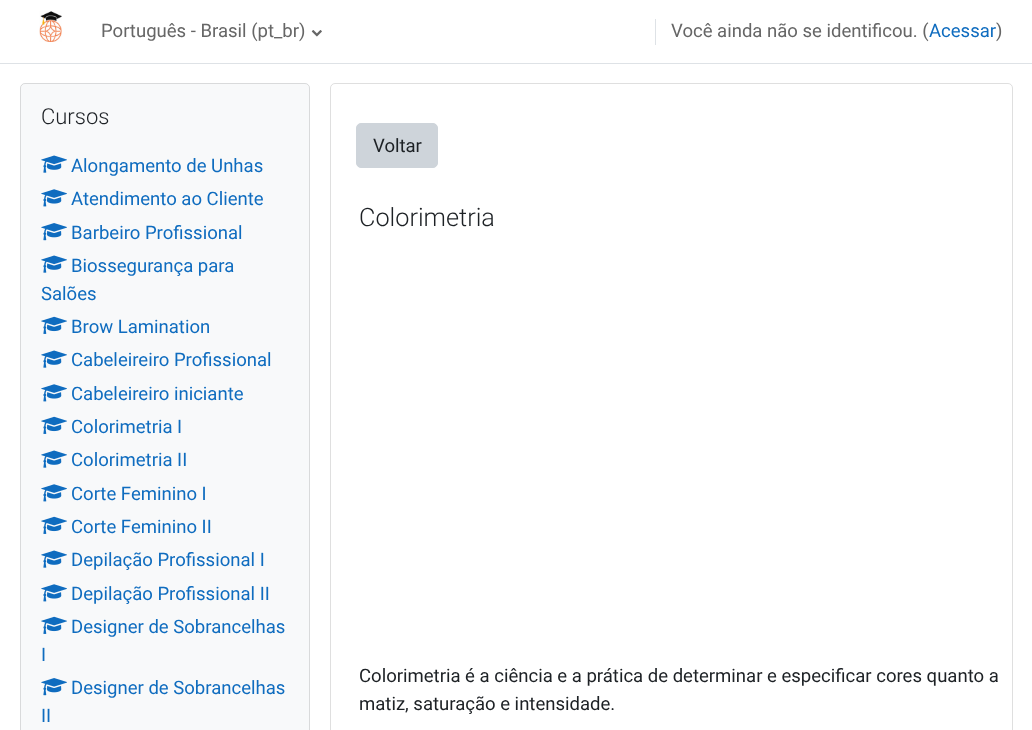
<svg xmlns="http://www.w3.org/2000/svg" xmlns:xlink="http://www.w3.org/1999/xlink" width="1032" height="730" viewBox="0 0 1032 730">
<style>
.cls-1{font:18.55px Roboto;fill:#666666}
.cls-2{font:18.55px Roboto;fill:#0f6cbf}
.cls-3{font:300 22px Roboto;fill:#1d2125}
.cls-4{font:18.55px Roboto;fill:#1d2125}
.cls-5{font:300 25.25px Roboto;fill:#1d2125}
</style>
<rect width="100%" height="100%" fill="#ffffff"/>
<rect fill="#dee2e6" x="0" y="63" width="1032" height="1"/>
<image xlink:href="image0.png" x="39" y="11" width="23" height="31"/>
<image xlink:href="image1.png" x="311" y="30" width="11" height="7"/>
<rect fill="#dee2e6" x="655" y="19" width="1" height="26"/>
<rect fill="#f8f9fa" x="20" y="83" width="290" height="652" rx="5"/>
<rect fill="none" stroke="#000000" stroke-opacity="0.12" x="20.5" y="83.5" width="289" height="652" rx="4.5"/>
<image xlink:href="image2.png" x="41" y="155" width="26" height="18"/>
<image xlink:href="image3.png" x="41" y="189" width="26" height="18"/>
<image xlink:href="image4.png" x="41" y="223" width="26" height="18"/>
<image xlink:href="image2.png" x="41" y="255" width="26" height="18"/>
<image xlink:href="image5.png" x="41" y="316" width="26" height="18"/>
<image xlink:href="image2.png" x="41" y="350" width="26" height="18"/>
<image xlink:href="image3.png" x="41" y="384" width="26" height="18"/>
<image xlink:href="image5.png" x="41" y="416" width="26" height="18"/>
<image xlink:href="image2.png" x="41" y="450" width="26" height="18"/>
<image xlink:href="image3.png" x="41" y="484" width="26" height="18"/>
<image xlink:href="image5.png" x="41" y="516" width="26" height="18"/>
<image xlink:href="image2.png" x="41" y="550" width="26" height="18"/>
<image xlink:href="image3.png" x="41" y="584" width="26" height="18"/>
<image xlink:href="image5.png" x="41" y="616" width="26" height="18"/>
<image xlink:href="image4.png" x="41" y="678" width="26" height="18"/>
<rect fill="none" stroke="#dfdfdf" x="330.5" y="83.5" width="682" height="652" rx="4.5"/>
<rect fill="#ced4da" stroke="#ced4da" x="356.5" y="123.5" width="81" height="44" rx="4.5"/>
<text class="cls-1" x="101" y="37">Português - Brasil (pt_br)</text>
<text class="cls-1" x="671" y="37">Você ainda não se identificou. (</text>
<text class="cls-2" x="929" y="37">Acessar</text>
<text class="cls-1" x="996" y="37">)</text>
<text class="cls-3" x="41" y="124">Cursos</text>
<text class="cls-2"><tspan x="71" y="172">Alongamento de Unhas</tspan><tspan x="71" y="205">Atendimento ao Cliente</tspan><tspan x="71" y="239">Barbeiro Profissional</tspan><tspan x="71" y="272">Biossegurança para</tspan></text>
<text class="cls-2" x="41" y="300">Salões</text>
<text class="cls-2"><tspan x="71" y="333">Brow Lamination</tspan><tspan x="71" y="366">Cabeleireiro Profissional</tspan><tspan x="71" y="400">Cabeleireiro iniciante</tspan><tspan x="71" y="433">Colorimetria I</tspan><tspan x="71" y="466">Colorimetria II</tspan><tspan x="71" y="500">Corte Feminino I</tspan><tspan x="71" y="533">Corte Feminino II</tspan><tspan x="71" y="566">Depilação Profissional I</tspan><tspan x="71" y="600">Depilação Profissional II</tspan><tspan x="71" y="633">Designer de Sobrancelhas</tspan></text>
<text class="cls-2" x="41" y="661">I</text>
<text class="cls-2" x="71" y="694">Designer de Sobrancelhas</text>
<text class="cls-2" x="41" y="722">II</text>
<text class="cls-4" x="373" y="152">Voltar</text>
<text class="cls-5" x="359" y="226">Colorimetria</text>
<text class="cls-4"><tspan x="359" y="682">Colorimetria é a ciência e a prática de determinar e especificar cores quanto a</tspan><tspan x="359" y="710">matiz, saturação e intensidade.</tspan></text>
</svg>
